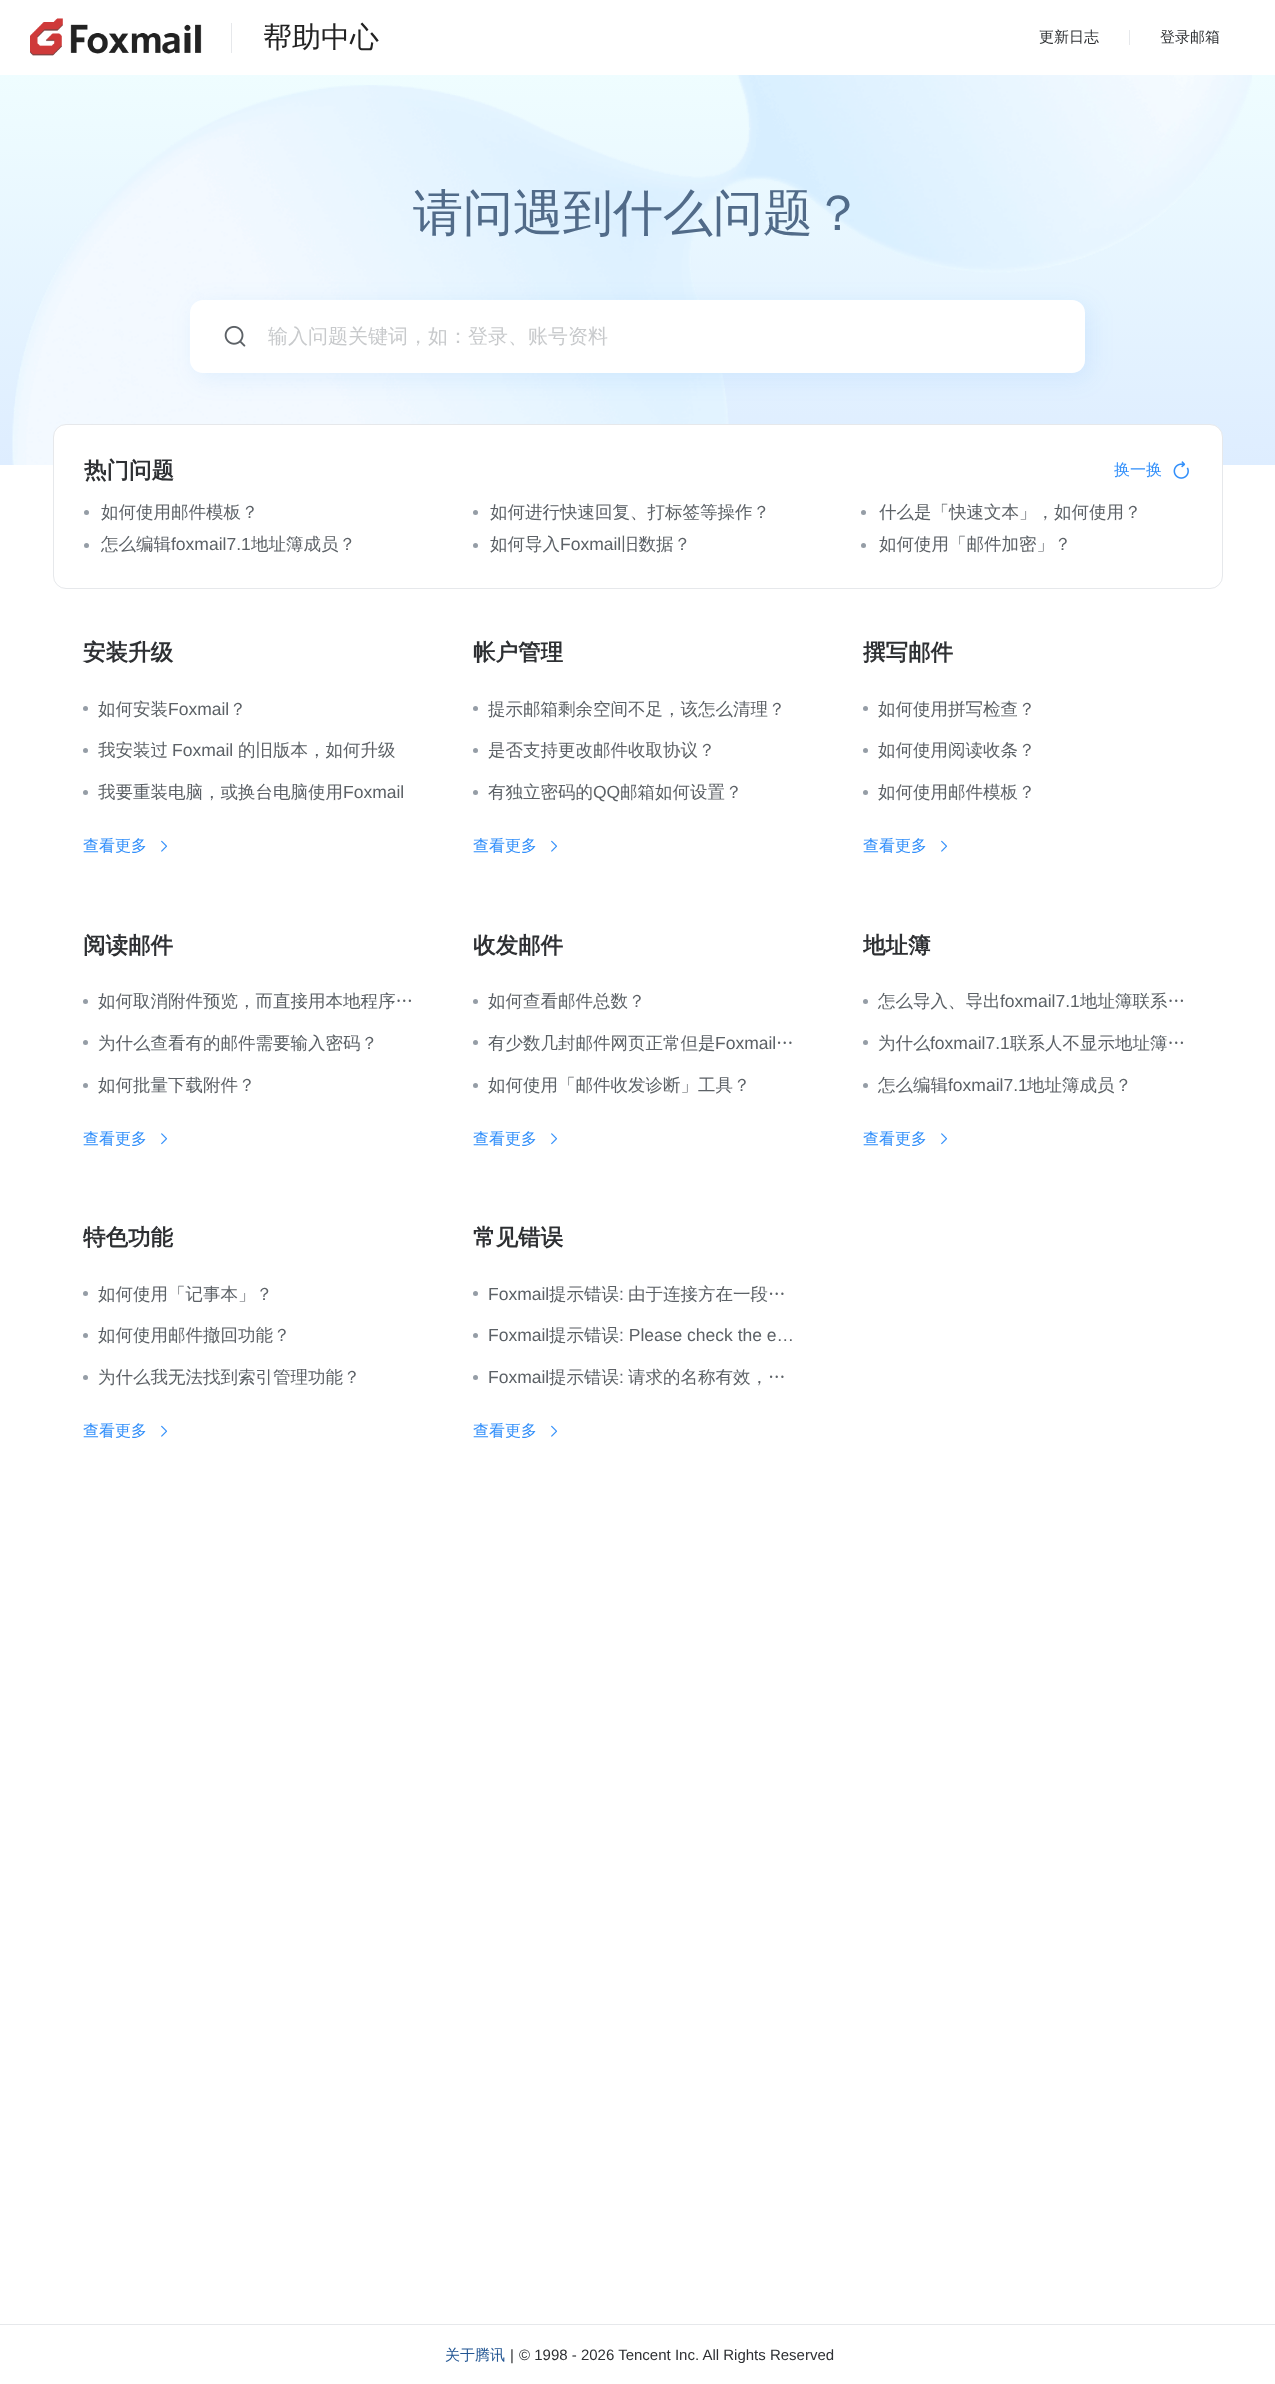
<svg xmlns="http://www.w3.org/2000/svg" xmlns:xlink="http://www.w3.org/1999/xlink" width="1275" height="2384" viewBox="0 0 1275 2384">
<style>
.cls-1{font:500 29px WenQuanYi Zen Hei;fill:#222222}
.cls-2{font:500 15px WenQuanYi Zen Hei;fill:#2e3033}
.cls-3{font:500 50px WenQuanYi Zen Hei;fill:#516b89}
.cls-4{font:500 20px WenQuanYi Zen Hei;fill:#c8cacc}
.cls-5{font:bold 22.5px WenQuanYi Zen Hei;fill:#2e3033}
.cls-6{font:500 16px WenQuanYi Zen Hei;fill:#328ffa}
.cls-7{font:500 17.5px WenQuanYi Zen Hei;fill:#5c6166}
.cls-8{font:17.5px Liberation Sans;fill:#5c6166}
.cls-9{font:500 15px WenQuanYi Zen Hei;fill:#225592}
.cls-10{font:15px Liberation Sans;fill:#2e3033}
</style>
<defs>
<linearGradient id="g1" gradientUnits="userSpaceOnUse" x1="638" y1="75" x2="638" y2="465"><stop offset="0" stop-color="#effdff"/><stop offset="1" stop-color="#deedff"/></linearGradient>
<clipPath id="clip1"><rect x="863" y="930" width="330" height="30"/></clipPath>
</defs>
<rect width="100%" height="100%" fill="#ffffff"/>
<image xlink:href="image0.png" x="30" y="18" width="172" height="38"/>
<rect fill="#e6e8eb" x="231" y="23" width="1" height="30"/>
<rect fill="#e6e8eb" x="1129" y="30" width="1" height="15"/>
<rect fill="url(#g1)" x="0" y="75" width="1275" height="390"/>
<image xlink:href="image1.png" x="12" y="75" width="1240" height="390"/>
<rect fill="#328ffa" fill-opacity="0.1" filter="blur(12.5px)" x="195" y="305" width="895" height="73" rx="13"/>
<rect fill="#ffffff" x="190" y="300" width="895" height="73" rx="13"/>
<image xlink:href="image2.png" x="224" y="325" width="22" height="22"/>
<rect fill="#ffffff" stroke="#e6e8eb" x="53.5" y="424.5" width="1169" height="164" rx="12.5"/>
<image xlink:href="image3.png" x="1173" y="461" width="16" height="18"/>
<circle fill="#959da6" cx="86.5" cy="512.5" r="2.5"/>
<circle fill="#959da6" cx="475.5" cy="512.5" r="2.5"/>
<circle fill="#959da6" cx="863.5" cy="512.5" r="2.5"/>
<circle fill="#959da6" cx="86.5" cy="545.5" r="2.5"/>
<circle fill="#959da6" cx="475.5" cy="545.5" r="2.5"/>
<circle fill="#959da6" cx="863.5" cy="545.5" r="2.5"/>
<circle fill="#959da6" cx="85.5" cy="708.5" r="2.5"/>
<circle fill="#959da6" cx="85.5" cy="750.5" r="2.5"/>
<circle fill="#959da6" cx="85.5" cy="792.5" r="2.5"/>
<image xlink:href="image4.png" x="161" y="840" width="7" height="12"/>
<circle fill="#959da6" cx="475.5" cy="708.5" r="2.5"/>
<circle fill="#959da6" cx="475.5" cy="750.5" r="2.5"/>
<circle fill="#959da6" cx="475.5" cy="792.5" r="2.5"/>
<image xlink:href="image4.png" x="551" y="840" width="7" height="12"/>
<circle fill="#959da6" cx="865.5" cy="708.5" r="2.5"/>
<circle fill="#959da6" cx="865.5" cy="750.5" r="2.5"/>
<circle fill="#959da6" cx="865.5" cy="792.5" r="2.5"/>
<image xlink:href="image4.png" x="941" y="840" width="7" height="12"/>
<circle fill="#959da6" cx="85.5" cy="1001.5" r="2.5"/>
<circle fill="#959da6" cx="85.5" cy="1042.5" r="2.5"/>
<circle fill="#959da6" cx="85.5" cy="1085.5" r="2.5"/>
<image xlink:href="image5.png" x="161" y="1133" width="7" height="12"/>
<circle fill="#959da6" cx="475.5" cy="1001.5" r="2.5"/>
<circle fill="#959da6" cx="475.5" cy="1042.5" r="2.5"/>
<circle fill="#959da6" cx="475.5" cy="1085.5" r="2.5"/>
<image xlink:href="image5.png" x="551" y="1133" width="7" height="12"/>
<circle fill="#959da6" cx="865.5" cy="1001.5" r="2.5"/>
<circle fill="#959da6" cx="865.5" cy="1042.5" r="2.5"/>
<circle fill="#959da6" cx="865.5" cy="1085.5" r="2.5"/>
<image xlink:href="image5.png" x="941" y="1133" width="7" height="12"/>
<circle fill="#959da6" cx="85.5" cy="1293.5" r="2.5"/>
<circle fill="#959da6" cx="85.5" cy="1335.5" r="2.5"/>
<circle fill="#959da6" cx="85.5" cy="1377.5" r="2.5"/>
<image xlink:href="image4.png" x="161" y="1425" width="7" height="12"/>
<circle fill="#959da6" cx="475.5" cy="1293.5" r="2.5"/>
<circle fill="#959da6" cx="475.5" cy="1335.5" r="2.5"/>
<circle fill="#959da6" cx="475.5" cy="1377.5" r="2.5"/>
<image xlink:href="image4.png" x="551" y="1425" width="7" height="12"/>
<rect fill="#e6e8eb" x="0" y="2324" width="1275" height="1"/>
<text class="cls-1" x="263" y="47">帮助中心</text>
<text class="cls-2" x="1039" y="42">更新日志</text>
<text class="cls-2" x="1160" y="42">登录邮箱</text>
<text class="cls-3" x="413" y="230">请问遇到什么问题？</text>
<text class="cls-4" x="268" y="343">输入问题关键词，如：登录、账号资料</text>
<text class="cls-5" x="84" y="478">热门问题</text>
<text class="cls-6" x="1114" y="475">换一换</text>
<text class="cls-7" x="101" y="518">如何使用邮件模板？</text>
<text class="cls-7" x="490" y="518">如何进行快速回复、打标签等操作？</text>
<text class="cls-7" x="879" y="518">什么是「快速文本」，如何使用？</text>
<text class="cls-7" x="101" y="550">怎么编辑</text>
<text class="cls-8" x="171" y="550">foxmail7.1</text>
<text class="cls-7" x="251" y="550">地址簿成员？</text>
<text class="cls-7" x="490" y="550">如何导入</text>
<text class="cls-8" x="560" y="550">Foxmail</text>
<text class="cls-7" x="621" y="550">旧数据？</text>
<text class="cls-7" x="879" y="550">如何使用「邮件加密」？</text>
<text class="cls-5" x="83" y="660">安装升级</text>
<text class="cls-7" x="98" y="715">如何安装</text>
<text class="cls-8" x="168" y="715">Foxmail</text>
<text class="cls-7" x="229" y="715">？</text>
<text class="cls-7" x="98" y="756">我安装过</text>
<text class="cls-8" x="172" y="756">Foxmail</text>
<text class="cls-7" x="238" y="756">的旧版本，如何升级</text>
<text class="cls-7" x="98" y="798">我要重装电脑，或换台电脑使用</text>
<text class="cls-8" x="343" y="798">Foxmail</text>
<text class="cls-6" x="83" y="851">查看更多</text>
<text class="cls-5" x="473" y="660">帐户管理</text>
<text class="cls-7" x="488" y="715">提示邮箱剩余空间不足，该怎么清理？</text>
<text class="cls-7" x="488" y="756">是否支持更改邮件收取协议？</text>
<text class="cls-7" x="488" y="798">有独立密码的</text>
<text class="cls-8" x="593" y="798">QQ</text>
<text class="cls-7" x="620" y="798">邮箱如何设置？</text>
<text class="cls-6" x="473" y="851">查看更多</text>
<text class="cls-5" x="863" y="660">撰写邮件</text>
<text class="cls-7" x="878" y="715">如何使用拼写检查？</text>
<text class="cls-7" x="878" y="756">如何使用阅读收条？</text>
<text class="cls-7" x="878" y="798">如何使用邮件模板？</text>
<text class="cls-6" x="863" y="851">查看更多</text>
<text class="cls-5" x="83" y="953">阅读邮件</text>
<text class="cls-7" x="98" y="1007">如何取消附件预览，而直接用本地程序…</text>
<text class="cls-7" x="98" y="1049">为什么查看有的邮件需要输入密码？</text>
<text class="cls-7" x="98" y="1091">如何批量下载附件？</text>
<text class="cls-6" x="83" y="1144">查看更多</text>
<text class="cls-5" x="473" y="953">收发邮件</text>
<text class="cls-7" x="488" y="1007">如何查看邮件总数？</text>
<text class="cls-7" x="488" y="1049">有少数几封邮件网页正常但是</text>
<text class="cls-8" x="715" y="1049">Foxmail</text>
<text class="cls-7" x="776" y="1049">…</text>
<text class="cls-7" x="488" y="1091">如何使用「邮件收发诊断」工具？</text>
<text class="cls-6" x="473" y="1144">查看更多</text>
<g clip-path="url(#clip1)">
<text class="cls-5" x="863" y="953">地址簿</text>
</g>
<text class="cls-7" x="878" y="1007">怎么导入、导出</text>
<text class="cls-8" x="1000" y="1007">foxmail7.1</text>
<text class="cls-7" x="1080" y="1007">地址簿联系…</text>
<text class="cls-7" x="878" y="1049">为什么</text>
<text class="cls-8" x="930" y="1049">foxmail7.1</text>
<text class="cls-7" x="1010" y="1049">联系人不显示地址簿…</text>
<text class="cls-7" x="878" y="1091">怎么编辑</text>
<text class="cls-8" x="948" y="1091">foxmail7.1</text>
<text class="cls-7" x="1027" y="1091">地址簿成员？</text>
<text class="cls-6" x="863" y="1144">查看更多</text>
<text class="cls-5" x="83" y="1245">特色功能</text>
<text class="cls-7" x="98" y="1300">如何使用「记事本」？</text>
<text class="cls-7" x="98" y="1341">如何使用邮件撤回功能？</text>
<text class="cls-7" x="98" y="1383">为什么我无法找到索引管理功能？</text>
<text class="cls-6" x="83" y="1436">查看更多</text>
<text class="cls-5" x="473" y="1245">常见错误</text>
<text class="cls-8" x="488" y="1300">Foxmail</text>
<text class="cls-7" x="549" y="1300">提示错误</text>
<text class="cls-8" x="619" y="1300">:</text>
<text class="cls-7" x="628" y="1300">由于连接方在一段…</text>
<text class="cls-8" x="488" y="1341">Foxmail</text>
<text class="cls-7" x="549" y="1341">提示错误</text>
<text class="cls-8" x="619" y="1341">: Please check the e…</text>
<text class="cls-8" x="488" y="1383">Foxmail</text>
<text class="cls-7" x="549" y="1383">提示错误</text>
<text class="cls-8" x="619" y="1383">:</text>
<text class="cls-7" x="628" y="1383">请求的名称有效，…</text>
<text class="cls-6" x="473" y="1436">查看更多</text>
<text class="cls-9" x="445" y="2360">关于腾讯</text>
<text class="cls-10" x="510" y="2360">|</text>
<text class="cls-10" x="519" y="2360">© 1998 - 2026 Tencent Inc. All Rights Reserved</text>
</svg>
